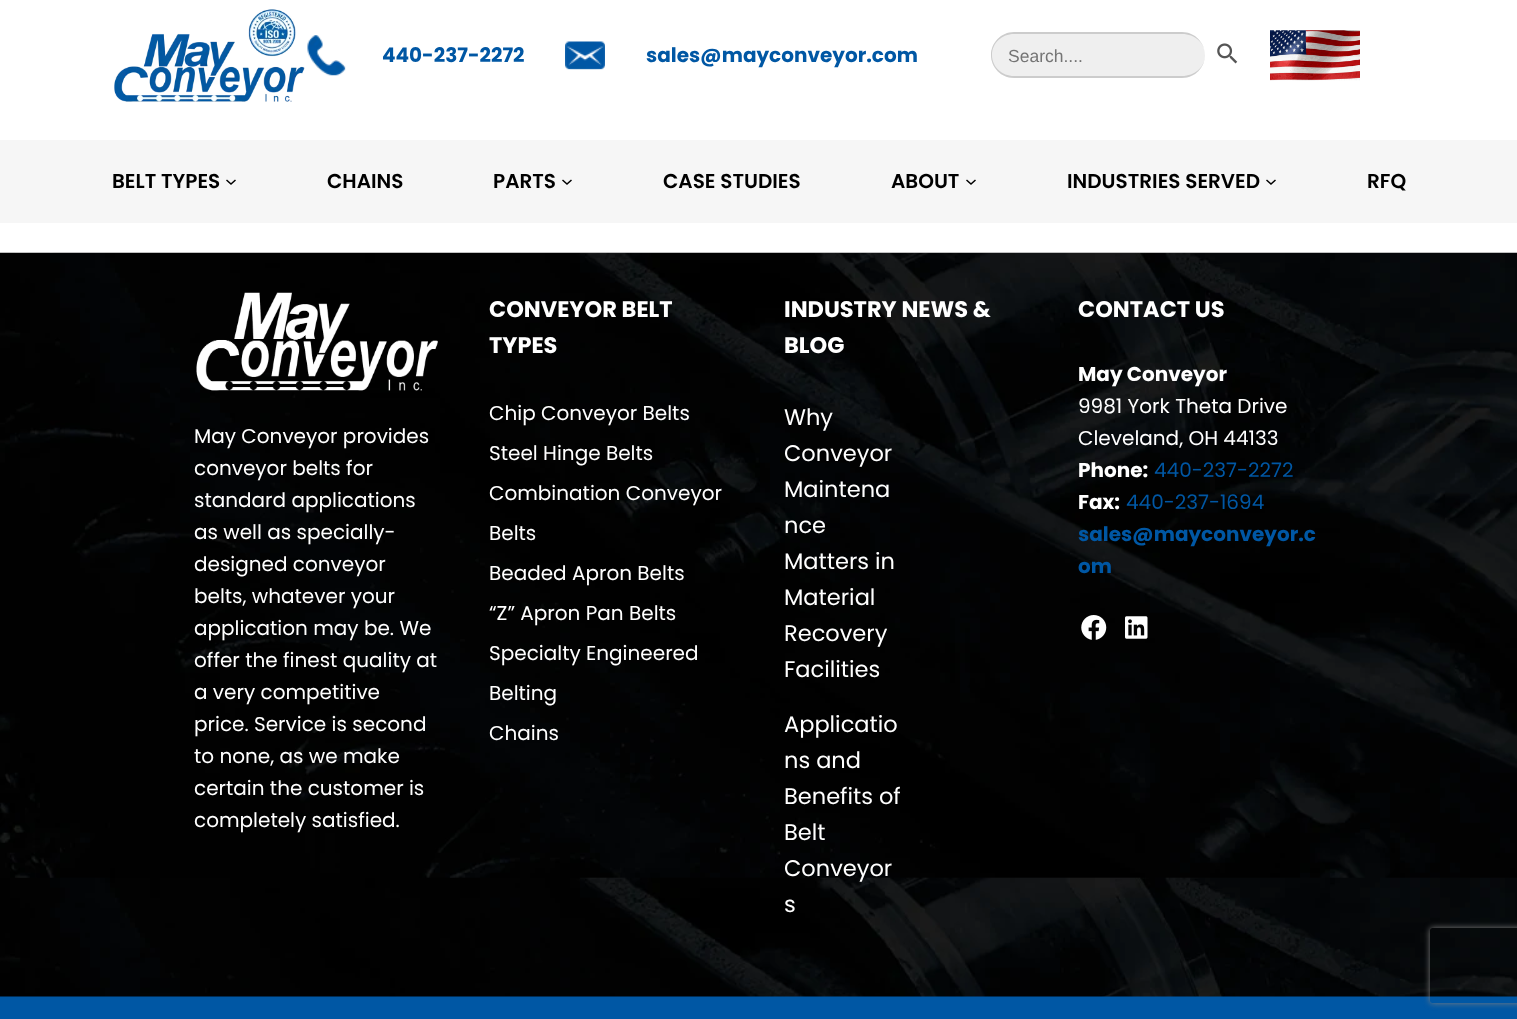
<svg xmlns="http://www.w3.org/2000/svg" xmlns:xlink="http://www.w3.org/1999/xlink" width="1517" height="1019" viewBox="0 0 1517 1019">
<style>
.cls-1{font:bold 20px Poppins;fill:#0057a4}
.cls-2{font:17.5px Liberation Sans;fill:#757575}
.cls-3{font:600 20px Poppins;fill:#000000}
.cls-4{font:20px Poppins;fill:#ffffff}
.cls-5{font:bold 22.5px Poppins;fill:#ffffff}
.cls-6{font:22.5px Poppins;fill:#ffffff}
.cls-7{font:bold 20px Poppins;fill:#ffffff}
.cls-8{font:20px Poppins;fill:#0057a4}
</style>
<defs>
<clipPath id="clip1"><path d="M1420 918H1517V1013H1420ZM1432.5 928H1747.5C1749 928 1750 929 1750 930.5V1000.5C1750 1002 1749 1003 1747.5 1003H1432.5C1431 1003 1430 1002 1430 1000.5V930.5C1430 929 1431 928 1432.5 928Z" clip-rule="evenodd"/></clipPath>
</defs>
<rect width="100%" height="100%" fill="#ffffff"/>
<image xlink:href="image0.png" x="114" y="9" width="191" height="93"/>
<image xlink:href="image1.png" x="307" y="35" width="39" height="41"/>
<image xlink:href="image2.png" x="565" y="41" width="40" height="29"/>
<rect fill="#efefef" x="991" y="33" width="214" height="45" rx="22.5"/>
<path fill="#cccccc" fill-rule="evenodd" d="M1014 32H1182C1195 32 1205 43 1205 55C1205 67 1195 78 1182 78H1014C1001 78 991 67 991 55C991 43 1001 32 1014 32ZM1014 34H1182C1195 34 1205 43 1205 55C1205 67 1195 76 1182 76H1014C1002 76 992 67 992 55C992 43 1002 34 1014 34Z"/>
<image xlink:href="image3.png" x="1217" y="43" width="21" height="21"/>
<image xlink:href="image4.png" x="1270" y="30" width="90" height="51"/>
<rect fill="#f6f6f6" x="0" y="140" width="1517" height="83"/>
<path fill="none" stroke="#000000" stroke-width="1.5" d="M226.5 180L231 184L235.5 180"/>
<path fill="none" stroke="#000000" stroke-width="1.5" d="M562.5 180L567 184L571.5 180"/>
<path fill="none" stroke="#000000" stroke-width="1.5" d="M966.5 180L971 184L975.5 180"/>
<path fill="none" stroke="#000000" stroke-width="1.5" d="M1266.5 180L1271 184L1275.5 180"/>
<rect fill="#0057a4" x="0" y="996" width="1517" height="23"/>
<image xlink:href="image5.png" x="0" y="252" width="1517" height="745"/>
<image xlink:href="image6.png" x="196" y="292" width="242" height="99"/>
<image xlink:href="image7.png" x="1081" y="615" width="26" height="25"/>
<image xlink:href="image8.png" x="1125" y="616" width="23" height="23"/>
<g clip-path="url(#clip1)">
<rect fill="#808080" filter="blur(3px)" x="1430" y="928" width="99" height="75" rx="2.5"/>
</g>
<text class="cls-1" x="382" y="62">440-237-2272</text>
<text class="cls-1" x="646" y="62">sales@mayconveyor.com</text>
<text class="cls-2" x="1008" y="62">Search....</text>
<text class="cls-3" x="112" y="188">BELT TYPES</text>
<text class="cls-3" x="327" y="188">CHAINS</text>
<text class="cls-3" x="493" y="188">PARTS</text>
<text class="cls-3" x="663" y="188">CASE STUDIES</text>
<text class="cls-3" x="891" y="188">ABOUT</text>
<text class="cls-3" x="1067" y="188">INDUSTRIES SERVED</text>
<text class="cls-3" x="1367" y="188">RFQ</text>
<text class="cls-4"><tspan x="194" y="443">May Conveyor provides</tspan><tspan x="194" y="475">conveyor belts for</tspan><tspan x="194" y="507">standard applications</tspan><tspan x="194" y="539">as well as specially-</tspan><tspan x="194" y="571">designed conveyor</tspan><tspan x="194" y="603">belts, whatever your</tspan><tspan x="194" y="635">application may be. We</tspan><tspan x="194" y="667">offer the finest quality at</tspan><tspan x="194" y="699">a very competitive</tspan><tspan x="194" y="731">price. Service is second</tspan><tspan x="194" y="763">to none, as we make</tspan><tspan x="194" y="795">certain the customer is</tspan><tspan x="194" y="827">completely satisfied.</tspan></text>
<text class="cls-5"><tspan x="489" y="317">CONVEYOR BELT</tspan><tspan x="489" y="353">TYPES</tspan></text>
<text class="cls-4" x="489" y="420">Chip Conveyor Belts</text>
<text class="cls-4" x="489" y="460">Steel Hinge Belts</text>
<text class="cls-4" x="489" y="500">Combination Conveyor</text>
<text class="cls-4" x="489" y="540">Belts</text>
<text class="cls-4" x="489" y="580">Beaded Apron Belts</text>
<text class="cls-4" x="489" y="620">“Z” Apron Pan Belts</text>
<text class="cls-4" x="489" y="660">Specialty Engineered</text>
<text class="cls-4" x="489" y="700">Belting</text>
<text class="cls-4" x="489" y="740">Chains</text>
<text class="cls-5"><tspan x="784" y="317">INDUSTRY NEWS &amp;</tspan><tspan x="784" y="353">BLOG</tspan></text>
<text class="cls-6"><tspan x="784" y="425">Why</tspan><tspan x="784" y="461">Conveyor</tspan><tspan x="784" y="497">Maintena</tspan><tspan x="784" y="533">nce</tspan><tspan x="784" y="569">Matters in</tspan><tspan x="784" y="605">Material</tspan><tspan x="784" y="641">Recovery</tspan><tspan x="784" y="677">Facilities</tspan></text>
<text class="cls-6"><tspan x="784" y="732">Applicatio</tspan><tspan x="784" y="768">ns and</tspan><tspan x="784" y="804">Benefits of</tspan><tspan x="784" y="840">Belt</tspan><tspan x="784" y="876">Conveyor</tspan><tspan x="784" y="912">s</tspan></text>
<text class="cls-5" x="1078" y="317">CONTACT US</text>
<text class="cls-7" x="1078" y="381">May Conveyor</text>
<text class="cls-4"><tspan x="1078" y="413">9981 York Theta Drive</tspan><tspan x="1078" y="445">Cleveland, OH 44133</tspan></text>
<text class="cls-7" x="1078" y="477">Phone:</text>
<text class="cls-8" x="1154" y="477">440-237-2272</text>
<text class="cls-7" x="1078" y="509">Fax:</text>
<text class="cls-8" x="1126" y="509">440-237-1694</text>
<text class="cls-1"><tspan x="1078" y="541">sales@mayconveyor.c</tspan><tspan x="1078" y="573">om</tspan></text>
</svg>
